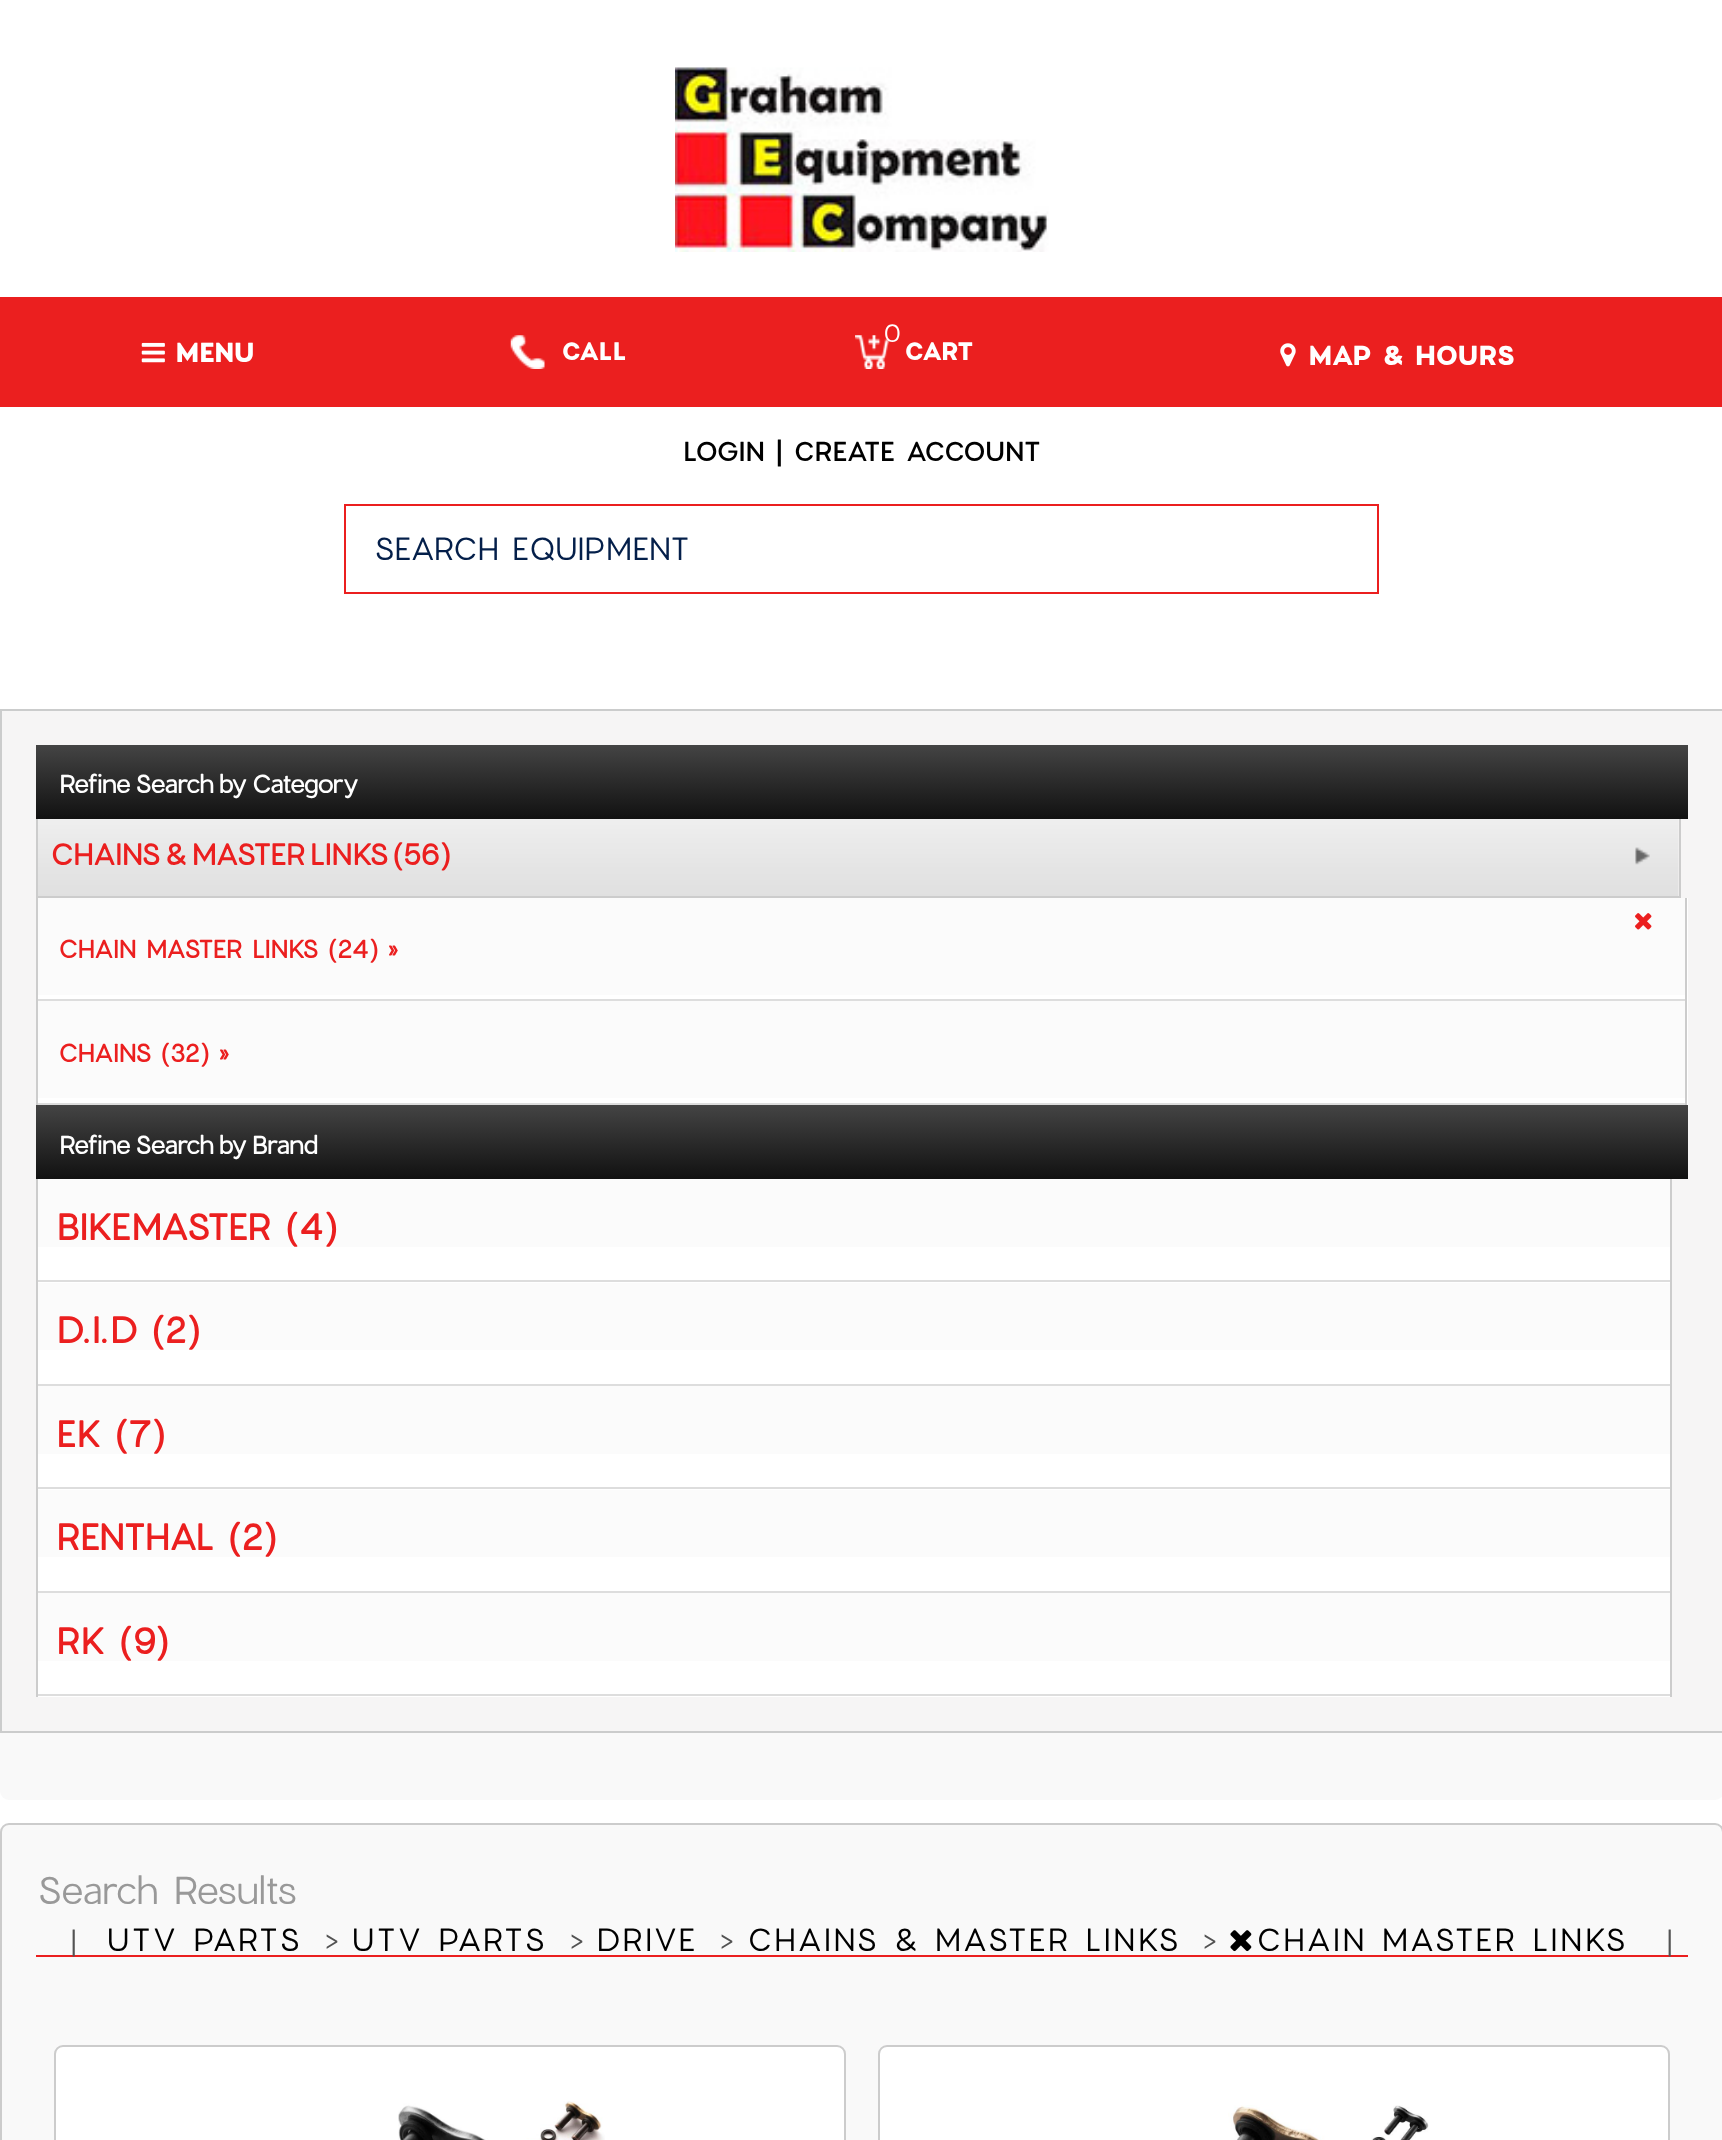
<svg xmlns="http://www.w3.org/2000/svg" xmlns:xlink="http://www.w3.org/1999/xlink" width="1722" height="2140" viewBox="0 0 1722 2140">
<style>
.cls-1{font:bold 27px 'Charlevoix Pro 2';fill:#ffffff}
.cls-2{font:bold 24.75px 'Charlevoix Pro 2';fill:#ffffff}
.cls-3{font:24.75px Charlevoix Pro;fill:#ffffff}
.cls-4{font:500 27px Charlevoix Pro;fill:#000000}
.cls-5{font:31.5px Charlevoix Pro;fill:#041f4a}
.cls-6{font:bold 24.75px Charlevoix Pro;fill:#ffffff}
.cls-7{font:bold 29.25px Charlevoix Pro;fill:#eb1f1f}
.cls-8{font:bold 24.75px Charlevoix Pro;fill:#eb1f1f}
.cls-9{font:bold 36px Charlevoix Pro;fill:#eb1f1f}
.cls-10{font:38.25px Charlevoix Pro;fill:#999999}
.cls-11{font:27px Charlevoix Pro;letter-spacing:-2px;fill:#535353}
.cls-12{font:31.5px Charlevoix Pro;letter-spacing:2.25px;fill:#000000}
</style>
<defs>
<linearGradient id="g1" gradientUnits="userSpaceOnUse" x1="862" y1="745" x2="862" y2="819"><stop offset="0" stop-color="#444444"/><stop offset="1" stop-color="#111111"/></linearGradient>
<linearGradient id="g2" gradientUnits="userSpaceOnUse" x1="862" y1="1105" x2="862" y2="1179"><stop offset="0" stop-color="#444444"/><stop offset="1" stop-color="#111111"/></linearGradient>
</defs>
<rect width="100%" height="100%" fill="#ffffff"/>
<image xlink:href="image0.png" x="675" y="67" width="374" height="185"/>
<rect fill="#eb1f1f" x="0" y="297" width="1722" height="110"/>
<image xlink:href="image1.png" x="141" y="342" width="24" height="21"/>
<image xlink:href="image2.png" x="510" y="335" width="35" height="34"/>
<image xlink:href="image3.png" x="855" y="335" width="34" height="34"/>
<image xlink:href="image4.png" x="1280" y="343" width="16" height="24"/>
<rect fill="none" stroke="#eb1f1f" stroke-width="2" x="345" y="505" width="1033" height="88"/>
<rect fill="#f9f9f9" x="0" y="709" width="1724" height="1091" rx="9"/>
<rect fill="#f6f5f5" stroke="#cbcccc" stroke-width="2" x="1" y="710" width="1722" height="1022"/>
<rect fill="url(#g1)" x="36" y="745" width="1652" height="74"/>
<image xlink:href="image5.png" x="38" y="819" width="1641" height="77"/>
<rect fill="#cccccc" x="1679" y="819" width="2" height="79"/>
<rect fill="#cccccc" x="36" y="896" width="1645" height="2"/>
<rect fill="#cccccc" x="36" y="819" width="2" height="286"/>
<rect fill="#ffffff" x="38" y="898" width="1650" height="207"/>
<rect fill="#cccccc" x="1685" y="898" width="2" height="207"/>
<rect fill="#dddddd" x="38" y="999" width="1647" height="2"/>
<rect fill="#fbfbfb" x="38" y="898" width="1647" height="97"/>
<image xlink:href="image6.png" x="1635" y="913" width="17" height="17"/>
<rect fill="#dddddd" x="38" y="1103" width="1647" height="2"/>
<rect fill="#fbfbfb" x="38" y="1001" width="1647" height="97"/>
<rect fill="url(#g2)" x="36" y="1105" width="1652" height="74"/>
<rect fill="#ffffff" x="38" y="1247" width="1632" height="450"/>
<rect fill="#cccccc" x="1670" y="1179" width="2" height="518"/>
<rect fill="#cccccc" x="36" y="1179" width="2" height="518"/>
<rect fill="#dddddd" x="38" y="1280" width="1632" height="2"/>
<rect fill="#fbfbfb" x="38" y="1179" width="1632" height="68"/>
<rect fill="#dddddd" x="38" y="1384" width="1632" height="2"/>
<rect fill="#fbfbfb" x="38" y="1283" width="1632" height="67"/>
<rect fill="#dddddd" x="38" y="1487" width="1632" height="2"/>
<rect fill="#fbfbfb" x="38" y="1386" width="1632" height="68"/>
<rect fill="#dddddd" x="38" y="1591" width="1632" height="2"/>
<rect fill="#fbfbfb" x="38" y="1490" width="1632" height="67"/>
<rect fill="#dddddd" x="38" y="1694" width="1632" height="2"/>
<rect fill="#fbfbfb" x="38" y="1593" width="1632" height="68"/>
<rect fill="#f9f9f9" stroke="#cccccc" stroke-width="2" x="1" y="1824" width="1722" height="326" rx="8"/>
<rect fill="#eb1f1f" x="36" y="1955" width="1652" height="2"/>
<image xlink:href="image7.png" x="1230" y="1930" width="22" height="22"/>
<rect fill="#ffffff" stroke="#cccccc" stroke-width="2" x="55" y="2046" width="790" height="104" rx="8"/>
<image xlink:href="image8.png" x="398" y="2101" width="207" height="39"/>
<rect fill="#ffffff" stroke="#cccccc" stroke-width="2" x="879" y="2046" width="790" height="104" rx="8"/>
<image xlink:href="image9.png" x="1228" y="2105" width="201" height="35"/>
<text class="cls-1" x="175" y="362">MENU</text>
<text class="cls-2" x="561" y="360">CALL</text>
<text class="cls-3" x="883" y="342">0</text>
<text class="cls-2" x="904" y="360">CART</text>
<text class="cls-1" x="1308" y="365">MAP &amp; HOURS</text>
<text class="cls-4" x="683" y="461">LOGIN | CREATE ACCOUNT</text>
<text class="cls-5" x="374" y="560">SEARCH EQUIPMENT</text>
<text class="cls-6" x="59" y="793" word-spacing="-4.5">Refine Search by Category</text>
<text class="cls-7" x="50" y="865" word-spacing="-7">CHAINS &amp; MASTER LINKS (56)</text>
<text class="cls-8" x="58" y="958">CHAIN MASTER LINKS (24) »</text>
<text class="cls-8" x="58" y="1062">CHAINS (32) »</text>
<text class="cls-6" x="59" y="1154" word-spacing="-4.5">Refine Search by Brand</text>
<text class="cls-9" x="56" y="1240">BIKEMASTER (4)</text>
<text class="cls-9" x="56" y="1343">D.I.D (2)</text>
<text class="cls-9" x="56" y="1447">EK (7)</text>
<text class="cls-9" x="56" y="1550">RENTHAL (2)</text>
<text class="cls-9" x="56" y="1654">RK (9)</text>
<text class="cls-10" x="37" y="1904">Search Results</text>
<text class="cls-11" x="70" y="1951">|</text>
<text class="cls-12" x="106" y="1951">UTV PARTS</text>
<text class="cls-11" x="324" y="1951">&gt;</text>
<text class="cls-12" x="351" y="1951">UTV PARTS</text>
<text class="cls-11" x="569" y="1951">&gt;</text>
<text class="cls-12" x="596" y="1951">DRIVE</text>
<text class="cls-11" x="719" y="1951">&gt;</text>
<text class="cls-12" x="747" y="1951">CHAINS &amp; MASTER LINKS</text>
<text class="cls-11" x="1202" y="1951">&gt;</text>
<text class="cls-12" x="1256" y="1951">CHAIN MASTER LINKS</text>
<text class="cls-11" x="1666" y="1951">|</text>
</svg>
